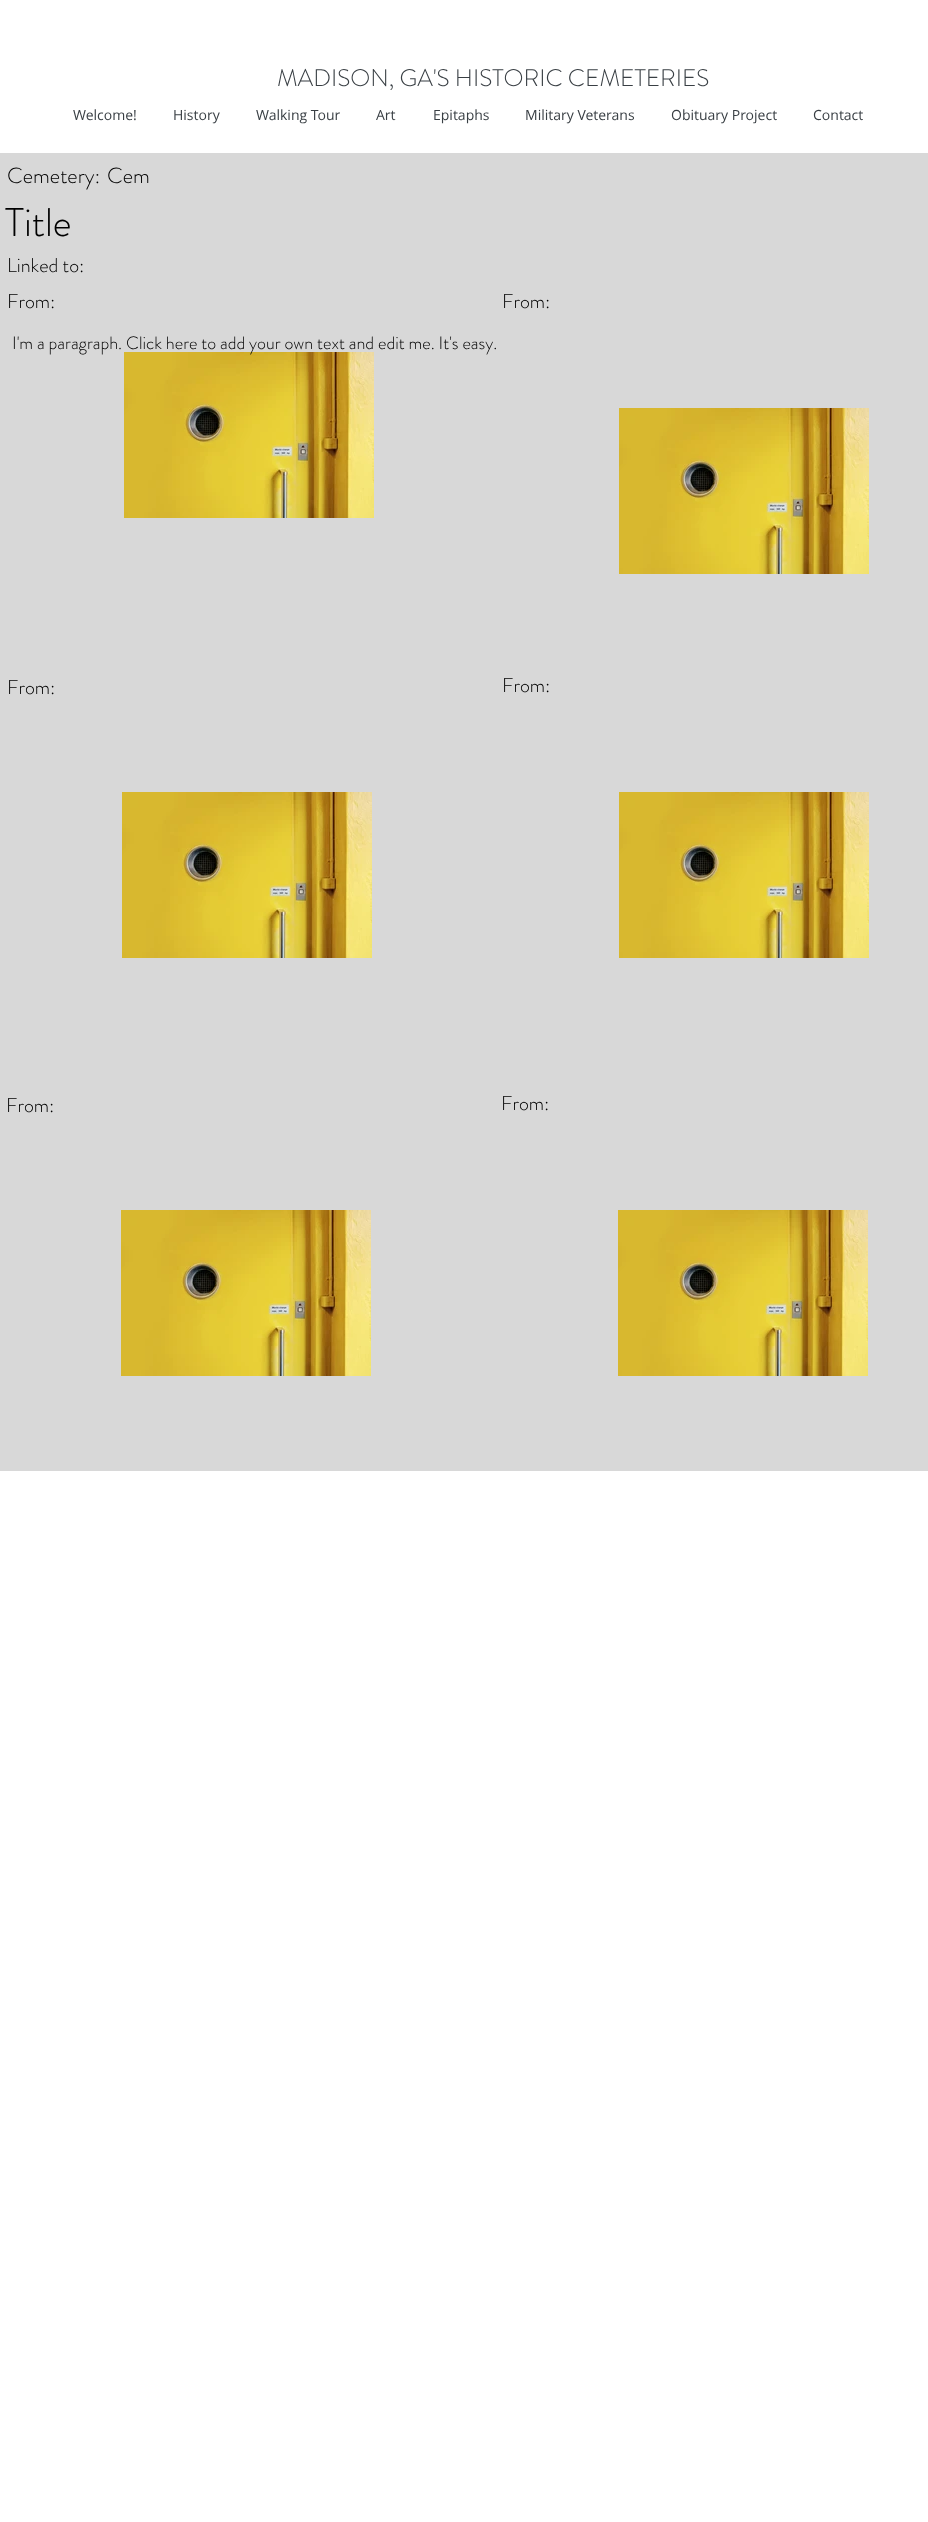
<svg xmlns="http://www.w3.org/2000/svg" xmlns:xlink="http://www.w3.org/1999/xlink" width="928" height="2522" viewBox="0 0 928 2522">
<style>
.cls-1{font:300 24px 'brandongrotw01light';fill:#393f44}
.cls-2{font:14px Open Sans;fill:#393f44}
.cls-3{font:300 22px 'brandongrotw01light';fill:#000000}
.cls-4{font:300 40px 'brandongrotw01light';fill:#000000}
.cls-5{font:300 20px 'brandongrotw01light';fill:#000000}
.cls-6{font:300 18px 'brandongrotw01light';fill:#000000}
</style>
<rect width="100%" height="100%" fill="#ffffff"/>
<rect fill="#d8d8d8" x="0" y="153" width="928" height="1318"/>
<image xlink:href="image0.png" x="124" y="352" width="250" height="166"/>
<image xlink:href="image0.png" x="619" y="408" width="250" height="166"/>
<image xlink:href="image0.png" x="122" y="792" width="250" height="166"/>
<image xlink:href="image0.png" x="619" y="792" width="250" height="166"/>
<image xlink:href="image0.png" x="121" y="1210" width="250" height="166"/>
<image xlink:href="image0.png" x="618" y="1210" width="250" height="166"/>
<text class="cls-1" x="277" y="86">MADISON, GA'S HISTORIC CEMETERIES</text>
<text class="cls-2" x="73" y="120">Welcome!</text>
<text class="cls-2" x="173" y="120">History</text>
<text class="cls-2" x="256" y="120">Walking Tour</text>
<text class="cls-2" x="376" y="120">Art</text>
<text class="cls-2" x="433" y="120">Epitaphs</text>
<text class="cls-2" x="525" y="120">Military Veterans</text>
<text class="cls-2" x="671" y="120">Obituary Project</text>
<text class="cls-2" x="813" y="120">Contact</text>
<text class="cls-3" x="7" y="183">Cemetery:</text>
<text class="cls-3" x="107" y="183">Cem</text>
<text class="cls-4" x="5" y="236">Title</text>
<text class="cls-5"><tspan x="7" y="272">Linked to:</tspan><tspan x="7" y="308">From:</tspan></text>
<text class="cls-5" x="502" y="308">From:</text>
<text class="cls-6" x="12" y="349">I'm a paragraph. Click here to add your own text and edit me. It's easy.</text>
<text class="cls-5" x="7" y="694">From:</text>
<text class="cls-5" x="502" y="692">From:</text>
<text class="cls-5" x="6" y="1112">From:</text>
<text class="cls-5" x="501" y="1110">From:</text>
</svg>
